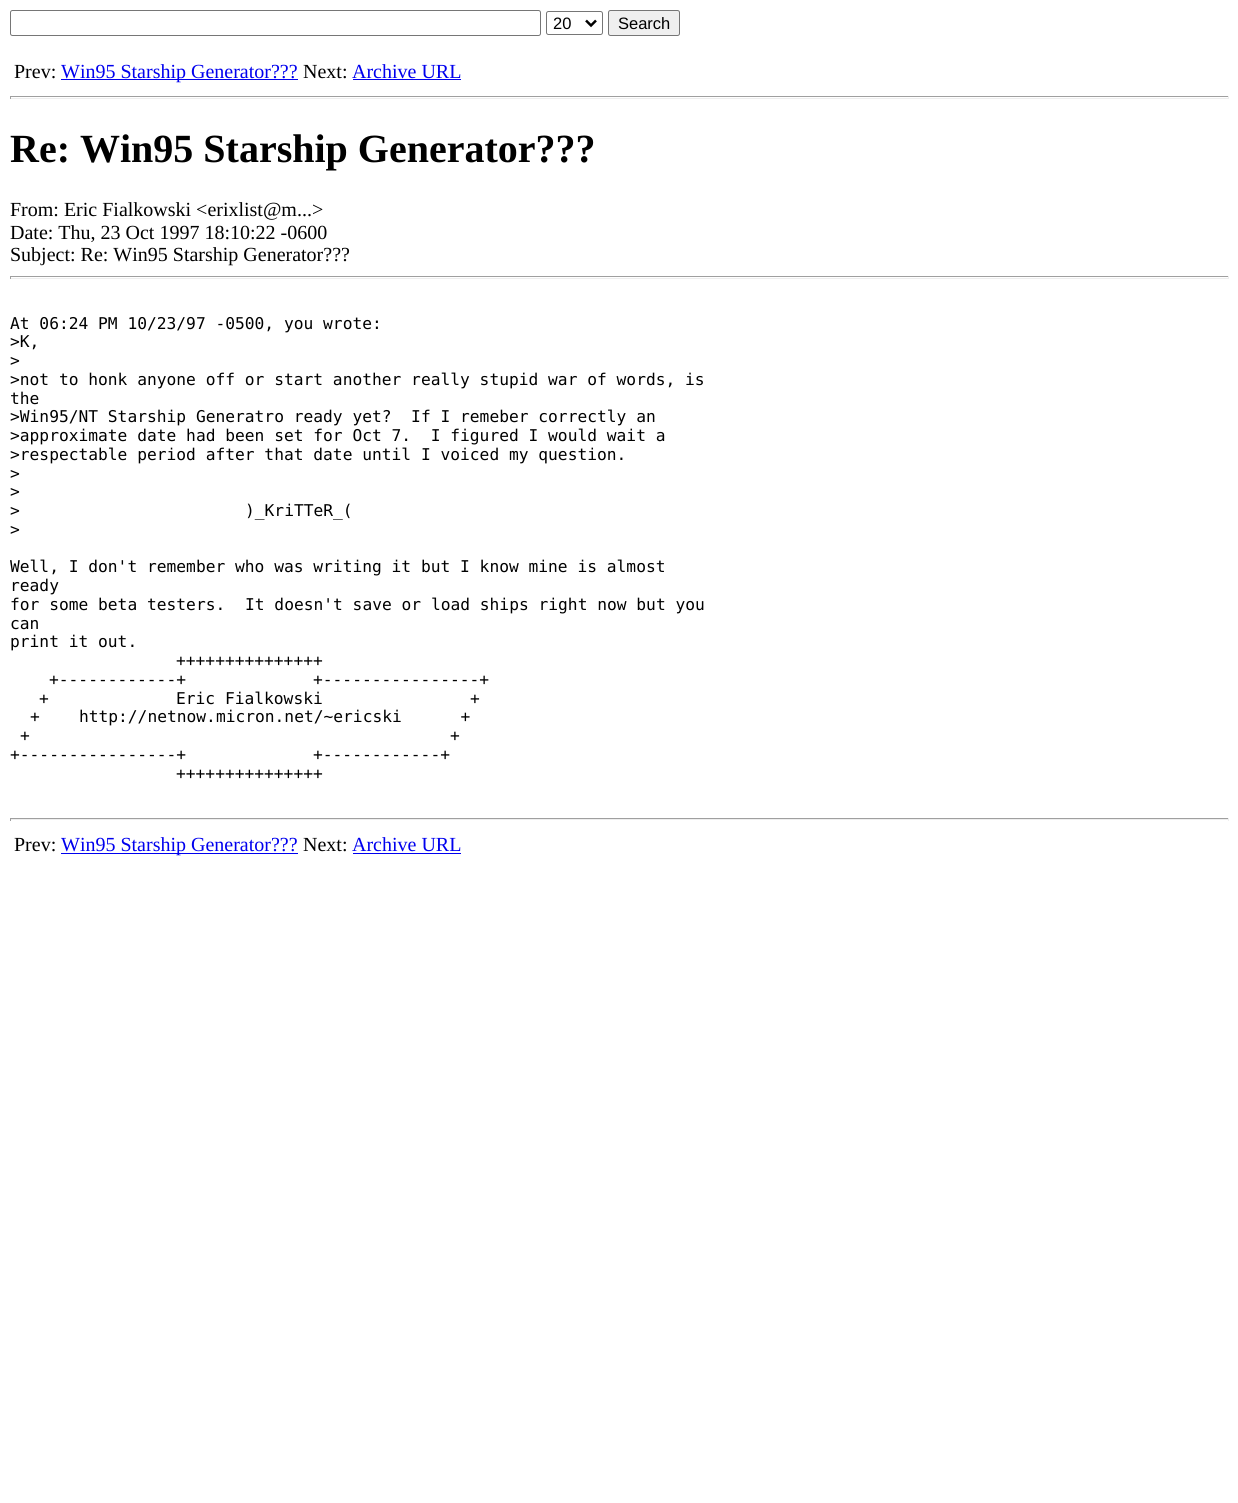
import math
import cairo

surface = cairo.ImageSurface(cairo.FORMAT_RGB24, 1238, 1503)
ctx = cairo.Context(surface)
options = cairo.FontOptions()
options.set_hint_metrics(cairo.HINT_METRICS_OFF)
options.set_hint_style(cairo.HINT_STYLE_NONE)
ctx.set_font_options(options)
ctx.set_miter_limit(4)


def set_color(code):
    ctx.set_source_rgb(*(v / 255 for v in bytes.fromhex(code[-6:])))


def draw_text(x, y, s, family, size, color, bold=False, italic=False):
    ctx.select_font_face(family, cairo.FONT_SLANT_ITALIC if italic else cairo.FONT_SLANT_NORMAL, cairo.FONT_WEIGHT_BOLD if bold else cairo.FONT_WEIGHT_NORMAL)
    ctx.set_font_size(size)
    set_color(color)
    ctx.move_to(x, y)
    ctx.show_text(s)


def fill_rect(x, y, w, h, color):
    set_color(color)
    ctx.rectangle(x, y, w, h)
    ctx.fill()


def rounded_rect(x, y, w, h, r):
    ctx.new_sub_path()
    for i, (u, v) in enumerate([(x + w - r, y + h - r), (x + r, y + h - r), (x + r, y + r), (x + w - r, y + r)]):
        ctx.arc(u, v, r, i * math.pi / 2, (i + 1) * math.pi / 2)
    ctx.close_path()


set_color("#ffffff")
ctx.paint()
rounded_rect(10.5, 10.5, 530, 25, 2)
set_color("#767676")
ctx.set_line_width(1)
ctx.stroke()
rounded_rect(546.5, 11.5, 56, 23, 2)
ctx.stroke()
ctx.new_path()
ctx.move_to(586, 20.5)
ctx.line_to(591, 25.5)
ctx.line_to(596, 20.5)
set_color("#000000")
ctx.set_line_width(2.5)
ctx.stroke()
draw_text(553, 29, "20", "Liberation Sans", 16.5, "#000000")
set_color("#efefef")
rounded_rect(608.5, 10.5, 71, 25, 2)
ctx.fill_preserve()
set_color("#767676")
ctx.set_line_width(1)
ctx.stroke()
draw_text(618, 29, "Search", "Liberation Sans", 16.5, "#000000")
draw_text(14, 78, "Prev:", "Liberation Serif", 20, "#000000")
fill_rect(61, 79, 237, 1, "#0000ee")
draw_text(61, 78, "Win95 Starship Generator???", "Liberation Serif", 20, "#0000ee")
draw_text(303, 78, "Next:", "Liberation Serif", 20, "#000000")
draw_text(352, 78, "Archive URL", "Liberation Serif", 20, "#0000ee")
fill_rect(353, 79, 108, 1, "#0000ee")
fill_rect(10, 96, 1219, 1, "#9f9f9f")
fill_rect(1228, 96, 1, 3, "#eeeeee")
fill_rect(10, 98, 1219, 1, "#eeeeee")
fill_rect(10, 96, 1, 3, "#9f9f9f")
draw_text(10, 162, "Re: Win95 Starship Generator???", "Liberation Serif", 40, "#000000", bold=True)
draw_text(10, 216, "From: Eric Fialkowski <erixlist@m...>", "Liberation Serif", 20, "#000000")
draw_text(10, 239, "Date: Thu, 23 Oct 1997 18:10:22 -0600", "Liberation Serif", 20, "#000000")
draw_text(10, 261, "Subject: Re: Win95 Starship Generator???", "Liberation Serif", 20, "#000000")
fill_rect(10, 276, 1219, 1, "#9f9f9f")
fill_rect(1228, 276, 1, 3, "#eeeeee")
fill_rect(10, 278, 1219, 1, "#eeeeee")
fill_rect(10, 276, 1, 3, "#9f9f9f")
draw_text(10, 329, "At 06:24 PM 10/23/97 -0500, you wrote:", "DejaVu Sans Mono", 16.25, "#000000")
draw_text(10, 347, ">K,", "DejaVu Sans Mono", 16.25, "#000000")
draw_text(10, 366, ">", "DejaVu Sans Mono", 16.25, "#000000")
draw_text(10, 385, ">not to honk anyone off or start another really stupid war of words, is", "DejaVu Sans Mono", 16.25, "#000000")
draw_text(10, 404, "the", "DejaVu Sans Mono", 16.25, "#000000")
draw_text(10, 422, ">Win95/NT Starship Generatro ready yet?  If I remeber correctly an", "DejaVu Sans Mono", 16.25, "#000000")
draw_text(10, 441, ">approximate date had been set for Oct 7.  I figured I would wait a", "DejaVu Sans Mono", 16.25, "#000000")
draw_text(10, 460, ">respectable period after that date until I voiced my question.", "DejaVu Sans Mono", 16.25, "#000000")
draw_text(10, 479, ">", "DejaVu Sans Mono", 16.25, "#000000")
draw_text(10, 497, ">", "DejaVu Sans Mono", 16.25, "#000000")
draw_text(10, 516, ">", "DejaVu Sans Mono", 16.25, "#000000")
draw_text(245, 516, ")_KriTTeR_(", "DejaVu Sans Mono", 16.25, "#000000")
draw_text(10, 535, ">", "DejaVu Sans Mono", 16.25, "#000000")
draw_text(10, 572, "Well, I don't remember who was writing it but I know mine is almost", "DejaVu Sans Mono", 16.25, "#000000")
draw_text(10, 591, "ready", "DejaVu Sans Mono", 16.25, "#000000")
draw_text(10, 610, "for some beta testers.", "DejaVu Sans Mono", 16.25, "#000000")
draw_text(245, 610, "It doesn't save or load ships right now but you", "DejaVu Sans Mono", 16.25, "#000000")
draw_text(10, 629, "can", "DejaVu Sans Mono", 16.25, "#000000")
draw_text(10, 647, "print it out.", "DejaVu Sans Mono", 16.25, "#000000")
draw_text(176, 666, "+++++++++++++++", "DejaVu Sans Mono", 16.25, "#000000")
draw_text(49, 685, "+------------+", "DejaVu Sans Mono", 16.25, "#000000")
draw_text(313, 685, "+----------------+", "DejaVu Sans Mono", 16.25, "#000000")
draw_text(39, 704, "+", "DejaVu Sans Mono", 16.25, "#000000")
draw_text(176, 704, "Eric Fialkowski", "DejaVu Sans Mono", 16.25, "#000000")
draw_text(470, 704, "+", "DejaVu Sans Mono", 16.25, "#000000")
draw_text(30, 722, "+    http://netnow.micron.net/~ericski      +", "DejaVu Sans Mono", 16.25, "#000000")
draw_text(20, 741, "+", "DejaVu Sans Mono", 16.25, "#000000")
draw_text(450, 741, "+", "DejaVu Sans Mono", 16.25, "#000000")
draw_text(10, 760, "+----------------+", "DejaVu Sans Mono", 16.25, "#000000")
draw_text(313, 760, "+------------+", "DejaVu Sans Mono", 16.25, "#000000")
draw_text(176, 779, "+++++++++++++++", "DejaVu Sans Mono", 16.25, "#000000")
fill_rect(10, 818, 1219, 1, "#9f9f9f")
fill_rect(1228, 818, 1, 3, "#eeeeee")
fill_rect(10, 819, 1219, 1, "#eeeeee")
fill_rect(10, 818, 1, 3, "#9f9f9f")
draw_text(14, 851, "Prev:", "Liberation Serif", 20, "#000000")
fill_rect(61, 853, 237, 1, "#0000ee")
draw_text(61, 851, "Win95 Starship Generator???", "Liberation Serif", 20, "#0000ee")
draw_text(303, 851, "Next:", "Liberation Serif", 20, "#000000")
draw_text(352, 851, "Archive URL", "Liberation Serif", 20, "#0000ee")
fill_rect(353, 853, 108, 1, "#0000ee")
surface.write_to_png("output.png")
